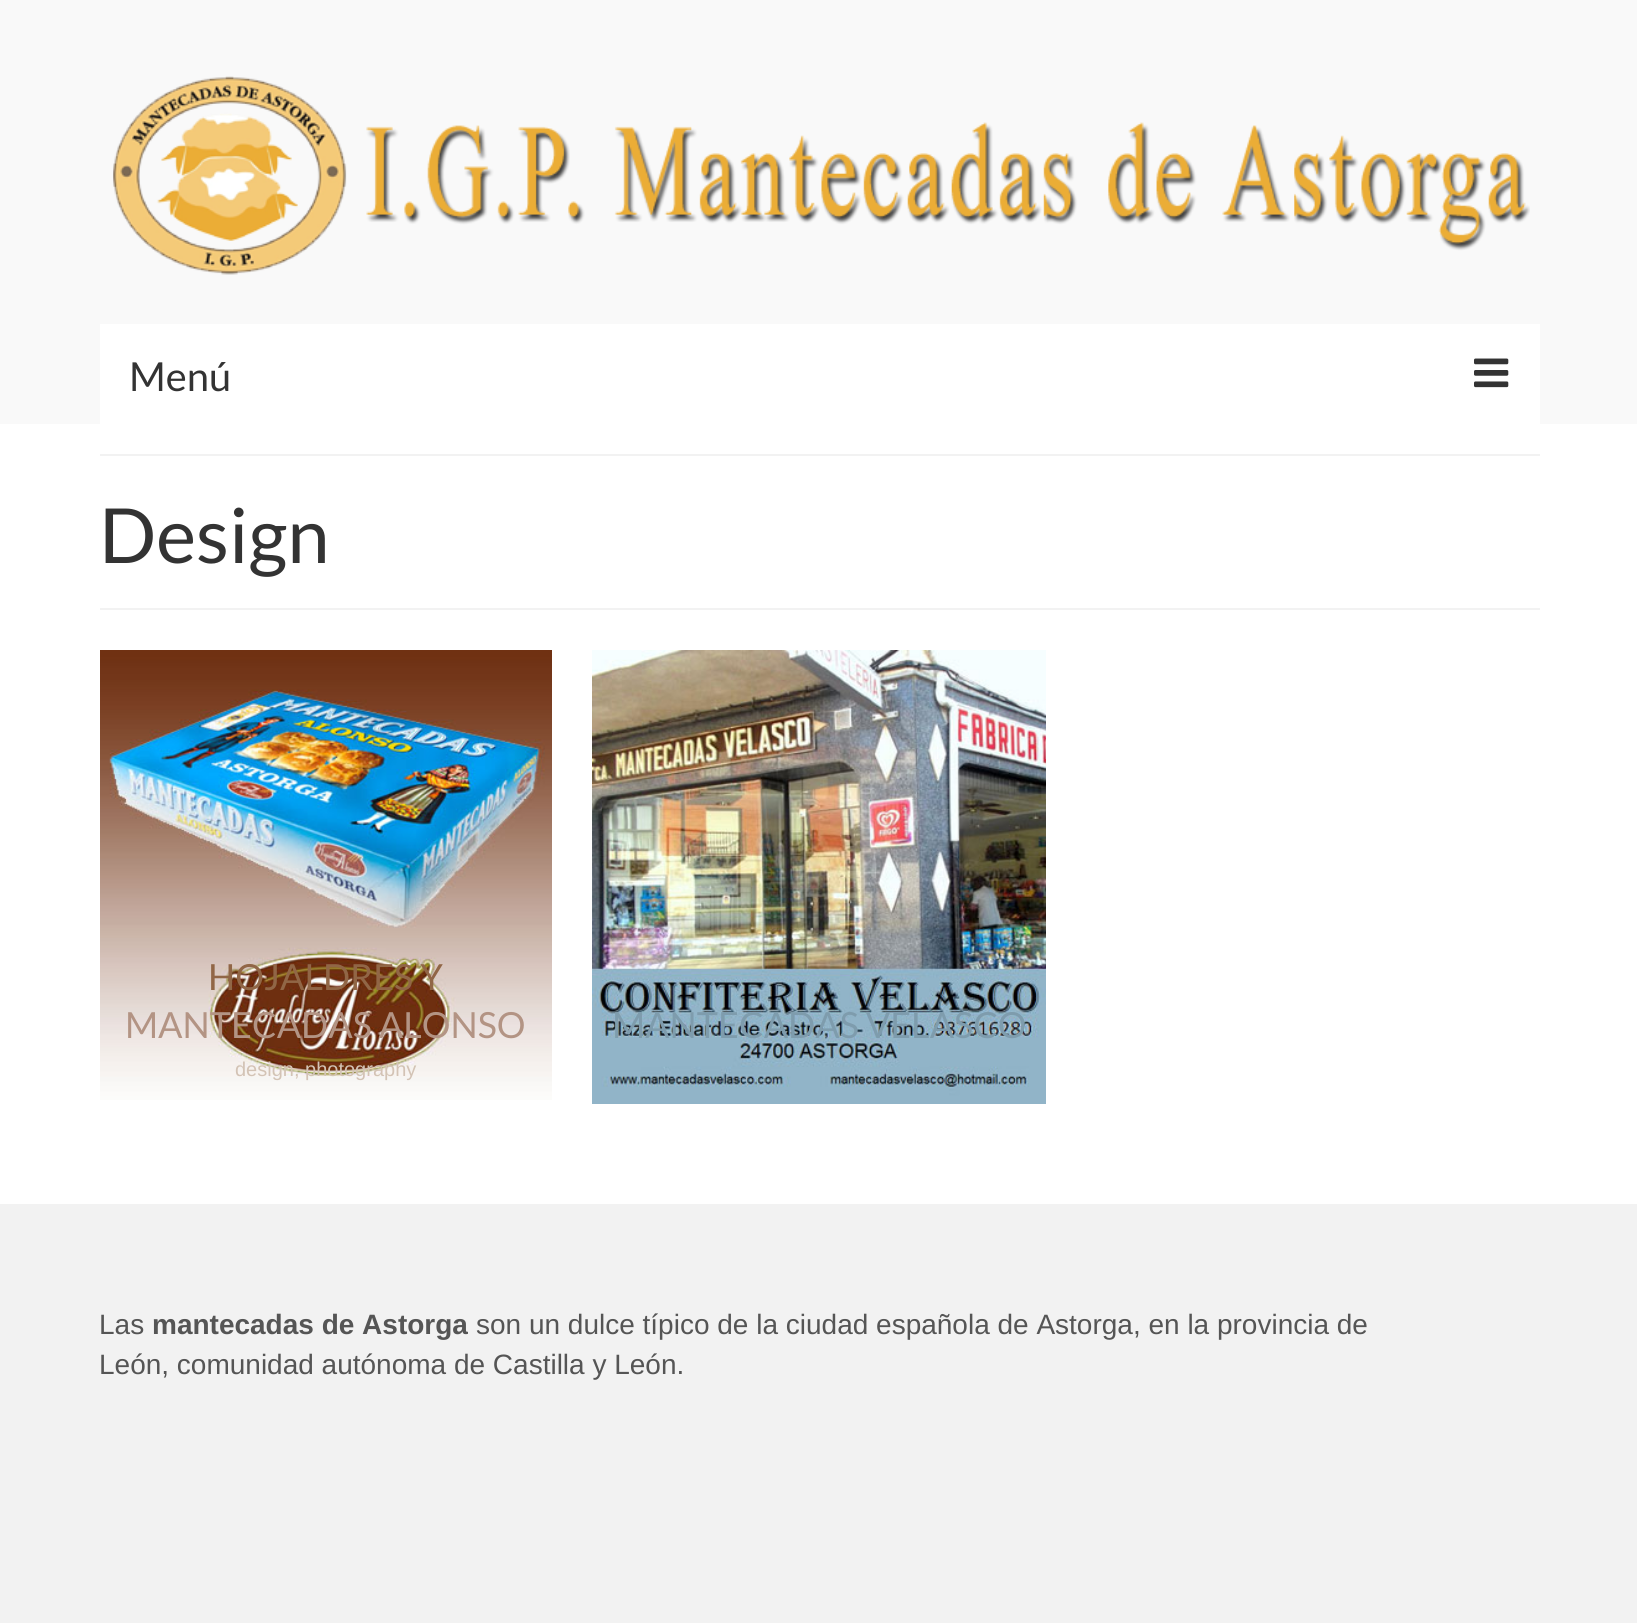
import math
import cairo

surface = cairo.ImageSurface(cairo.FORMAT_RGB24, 1637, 1623)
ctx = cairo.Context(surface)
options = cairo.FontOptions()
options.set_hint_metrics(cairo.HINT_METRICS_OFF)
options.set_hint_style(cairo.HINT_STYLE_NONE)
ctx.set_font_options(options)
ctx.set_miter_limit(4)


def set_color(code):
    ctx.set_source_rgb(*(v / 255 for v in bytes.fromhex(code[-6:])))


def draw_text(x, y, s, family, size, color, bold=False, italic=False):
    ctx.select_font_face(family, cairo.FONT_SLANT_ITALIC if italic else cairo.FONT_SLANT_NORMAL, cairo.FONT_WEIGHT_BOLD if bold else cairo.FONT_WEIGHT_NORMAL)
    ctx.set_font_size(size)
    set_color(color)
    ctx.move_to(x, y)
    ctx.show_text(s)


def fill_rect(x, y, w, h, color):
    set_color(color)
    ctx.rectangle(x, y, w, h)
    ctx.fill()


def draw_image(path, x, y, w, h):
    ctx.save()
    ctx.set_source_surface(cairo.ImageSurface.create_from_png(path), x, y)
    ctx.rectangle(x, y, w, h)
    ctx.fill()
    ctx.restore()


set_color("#ffffff")
ctx.paint()
fill_rect(0, 0, 1637, 424, "#f9f9f9")
draw_image("assets/img1.png", 113, 76, 1417, 199)
fill_rect(100, 324, 1440, 100, "#ffffff")
draw_text(129, 391, "Menú", "Lato", 40, "#333333")
draw_image("assets/img2.png", 1474, 358, 35, 30)
fill_rect(100, 454, 1440, 2, "#f2f2f2")
fill_rect(100, 608, 1440, 2, "#f2f2f2")
draw_text(99, 563, "Design", "Lato", 76, "#333333")
draw_image("assets/img3.png", 100, 650, 452, 450)
draw_text(208, 990, "HOJALDRES Y", "Lato", 36, "#916646")
draw_text(125, 1038, "MANTECADAS ALONSO", "Lato", 36, "#b39484")
draw_text(235, 1076, "design, photography", "Liberation Sans", 20, "#d3c3b5")
draw_image("assets/img4.png", 592, 650, 454, 454)
draw_text(612, 1038, "MANTECADAS VELASCO", "Lato", 36, "#7e9cad")
fill_rect(0, 1204, 1637, 419, "#f2f2f2")
draw_text(99, 1334, "Las", "Liberation Sans", 28, "#555555")
draw_text(152, 1334, "mantecadas de Astorga", "Liberation Sans", 28, "#555555", bold=True)
draw_text(476, 1334, "son un dulce típico de la ciudad española de Astorga, en la provincia de", "Liberation Sans", 28, "#555555")
draw_text(99, 1374, "León, comunidad autónoma de Castilla y León.", "Liberation Sans", 28, "#555555")
surface.write_to_png("output.png")
